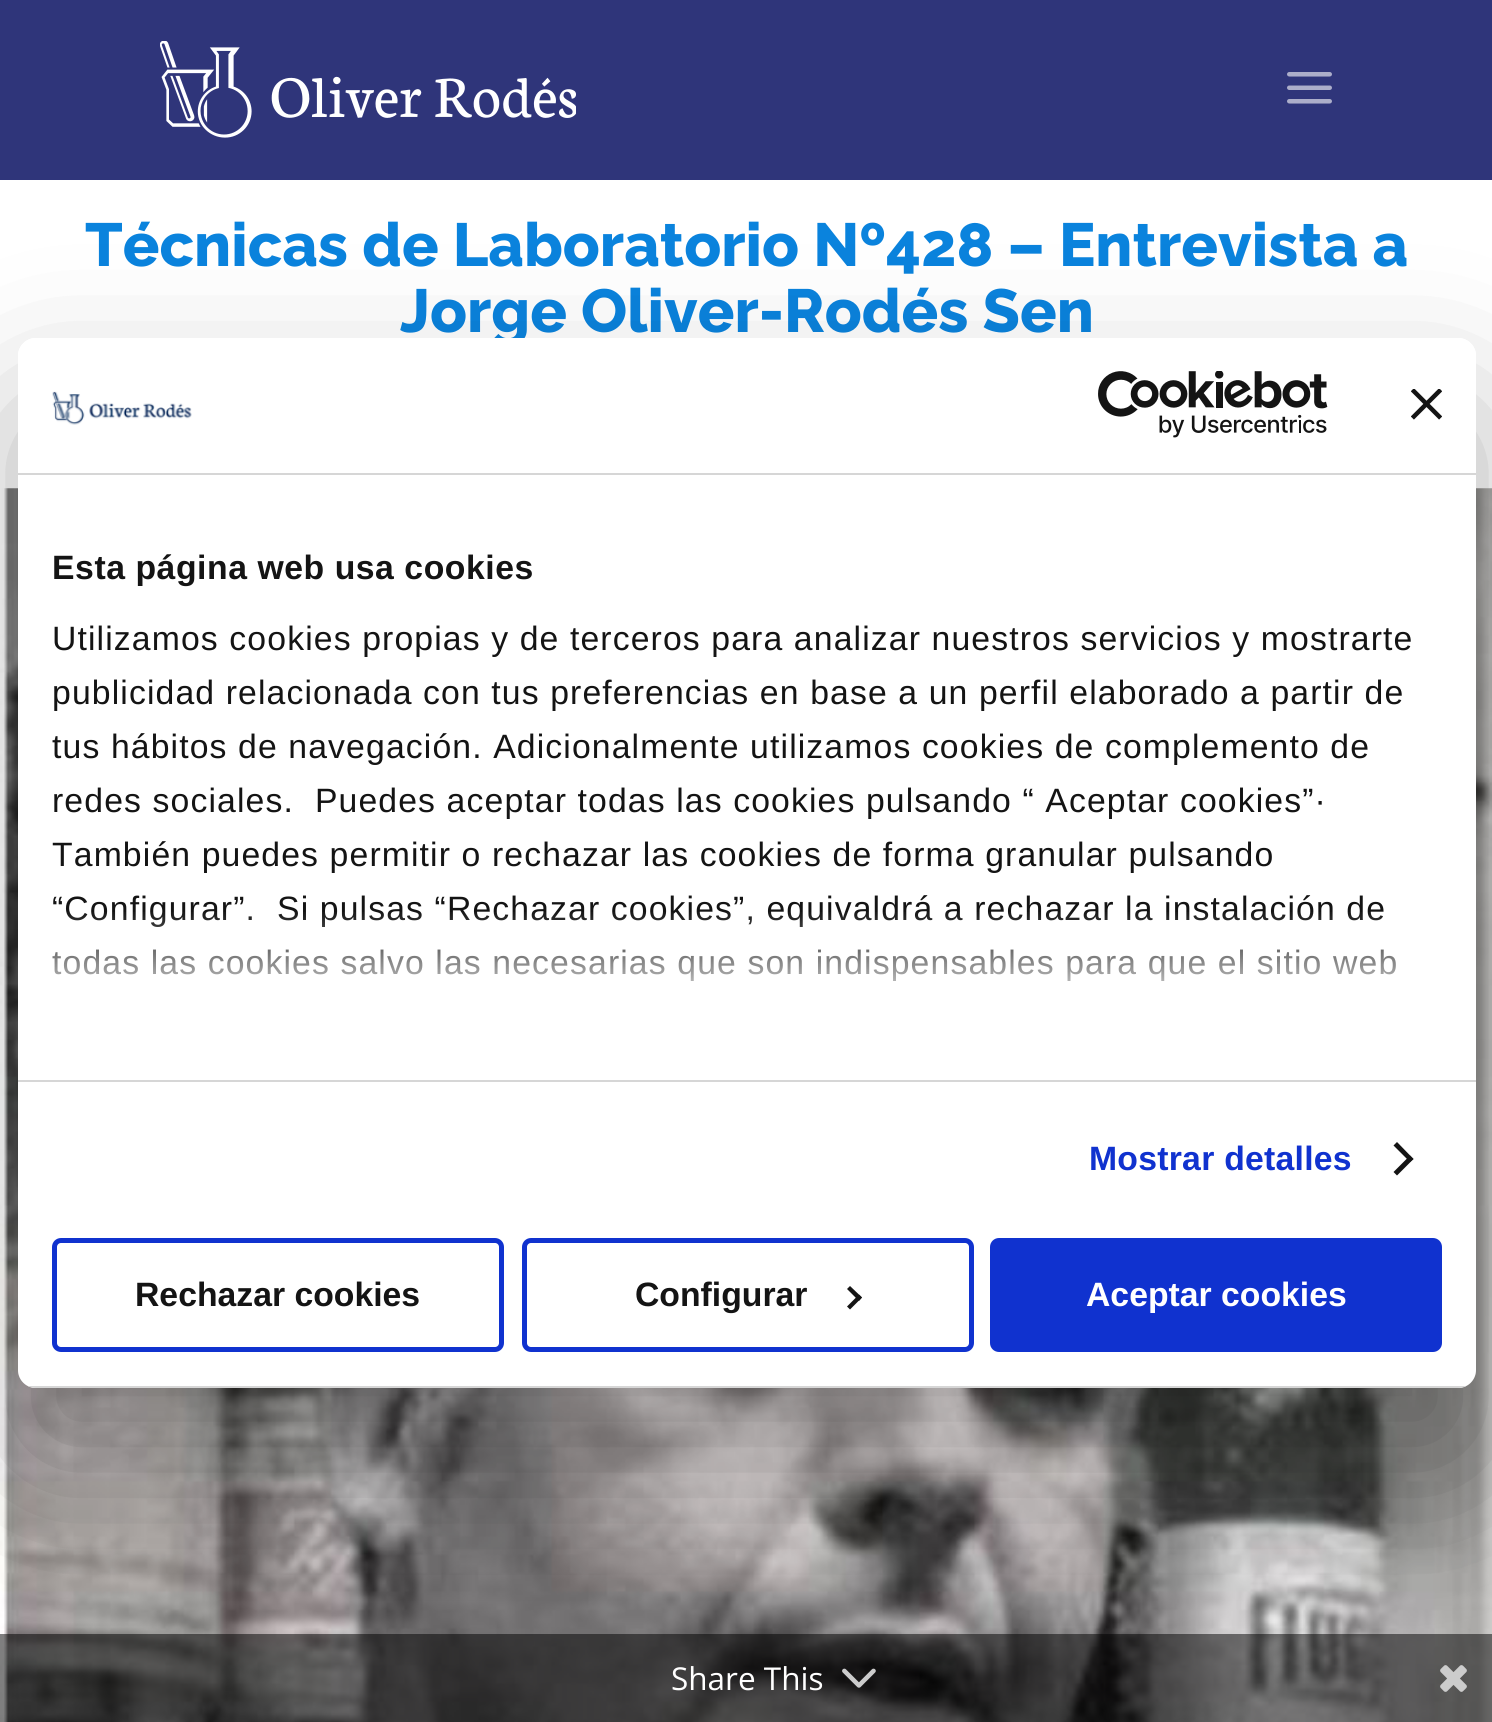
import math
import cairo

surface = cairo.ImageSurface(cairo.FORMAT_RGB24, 1492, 1722)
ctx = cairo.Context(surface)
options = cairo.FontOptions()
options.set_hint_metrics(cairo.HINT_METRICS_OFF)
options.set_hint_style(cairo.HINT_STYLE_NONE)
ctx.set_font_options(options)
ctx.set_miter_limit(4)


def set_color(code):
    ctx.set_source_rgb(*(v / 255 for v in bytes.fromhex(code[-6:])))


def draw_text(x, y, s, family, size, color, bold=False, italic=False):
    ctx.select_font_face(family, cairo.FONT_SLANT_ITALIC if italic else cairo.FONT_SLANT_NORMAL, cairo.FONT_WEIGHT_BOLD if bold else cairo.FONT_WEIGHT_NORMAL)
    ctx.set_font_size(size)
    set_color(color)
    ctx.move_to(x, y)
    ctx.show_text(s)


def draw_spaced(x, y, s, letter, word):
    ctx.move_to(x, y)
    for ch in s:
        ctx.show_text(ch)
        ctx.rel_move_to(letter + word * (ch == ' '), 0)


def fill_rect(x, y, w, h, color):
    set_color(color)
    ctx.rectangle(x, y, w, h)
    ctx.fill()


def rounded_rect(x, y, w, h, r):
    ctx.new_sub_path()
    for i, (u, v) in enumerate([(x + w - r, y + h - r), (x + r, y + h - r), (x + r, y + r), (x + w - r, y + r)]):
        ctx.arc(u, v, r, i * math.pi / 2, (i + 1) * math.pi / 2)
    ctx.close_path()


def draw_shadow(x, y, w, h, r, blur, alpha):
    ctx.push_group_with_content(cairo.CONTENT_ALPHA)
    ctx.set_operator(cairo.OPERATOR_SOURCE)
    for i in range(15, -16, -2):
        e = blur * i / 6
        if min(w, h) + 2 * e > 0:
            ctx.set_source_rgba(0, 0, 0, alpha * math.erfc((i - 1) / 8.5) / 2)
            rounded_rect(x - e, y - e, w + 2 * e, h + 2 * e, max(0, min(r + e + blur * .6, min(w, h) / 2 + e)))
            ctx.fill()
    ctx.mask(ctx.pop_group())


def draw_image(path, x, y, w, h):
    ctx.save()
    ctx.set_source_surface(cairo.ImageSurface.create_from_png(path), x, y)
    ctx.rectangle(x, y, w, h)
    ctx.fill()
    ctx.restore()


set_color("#ffffff")
ctx.paint()
fill_rect(0, 0, 1492, 180, "#2f357a")
draw_image("assets/img1.png", 160, 41, 416, 97)
draw_image("assets/img2.png", 1287, 72, 45, 32)
draw_text(85, 266, "Técnicas de Laboratorio Nº428 – Entrevista a", "Raleway ExtraBold", 60.75, "#0a83dd")
draw_text(400, 332, "Jorge Oliver-Rodés Sen", "Raleway ExtraBold", 60.75, "#0a83dd")
draw_image("assets/img3.png", 0, 488, 1492, 1234)
ctx.set_source_rgba(0, 0, 0, 0.5)
ctx.rectangle(0, 1634, 1492, 88)
ctx.fill()
draw_image("assets/img7.png", 842, 1668, 34, 20)
draw_image("assets/img8.png", 1440, 1665, 27, 27)
ctx.save()
ctx.set_fill_rule(cairo.FILL_RULE_EVEN_ODD)
ctx.new_path()
ctx.move_to(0, 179)
ctx.line_to(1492, 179)
ctx.line_to(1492, 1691)
ctx.line_to(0, 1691)
ctx.close_path()
ctx.move_to(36, 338)
ctx.line_to(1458, 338)
ctx.curve_to(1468, 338, 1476, 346, 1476, 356)
ctx.line_to(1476, 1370)
ctx.curve_to(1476, 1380, 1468, 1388, 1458, 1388)
ctx.line_to(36, 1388)
ctx.curve_to(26, 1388, 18, 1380, 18, 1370)
ctx.line_to(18, 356)
ctx.curve_to(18, 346, 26, 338, 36, 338)
ctx.close_path()
ctx.clip()
set_color("#000000")
draw_shadow(18, 410, 1458, 1050, 18, 76.5, 0.3)
ctx.restore()
set_color("#ffffff")
rounded_rect(18, 338, 1458, 1050, 18)
ctx.fill()
fill_rect(18, 473, 1458, 2, "#d6d6d6")
draw_image("assets/img4.png", 52, 391, 140, 34)
draw_image("assets/img5.png", 1098, 371, 230, 67)
draw_image("assets/img6.png", 1411, 389, 31, 31)
fill_rect(18, 1080, 1458, 2, "#d6d6d6")
ctx.select_font_face("Liberation Sans", cairo.FONT_SLANT_NORMAL, cairo.FONT_WEIGHT_BOLD)
ctx.set_font_size(33.75)
set_color("#141414")
draw_spaced(52, 579, "Esta página web usa cookies", 0.55, 0)
ctx.select_font_face("Liberation Sans")
draw_spaced(52, 650, "Utilizamos cookies propias y de terceros para analizar nuestros servicios y mostrarte", 1.12, 0)
draw_spaced(52, 704, "publicidad relacionada con tus preferencias en base a un perfil elaborado a partir de", 1.12, 0)
draw_spaced(52, 758, "tus hábitos de navegación. Adicionalmente utilizamos cookies de complemento de", 1.12, 0)
draw_spaced(52, 812, "redes sociales.  Puedes aceptar todas las cookies pulsando “ Aceptar cookies”·", 1.12, 0)
draw_spaced(52, 866, "También puedes permitir o rechazar las cookies de forma granular pulsando", 1.12, 0)
draw_spaced(52, 920, "“Configurar”.  Si pulsas “Rechazar cookies”, equivaldrá a rechazar la instalación de", 1.12, 0)
draw_spaced(52, 974, "todas las cookies salvo las necesarias que son indispensables para que el sitio web", 1.12, 0)
gradient = cairo.LinearGradient(732, 1079, 732, 910)
gradient.add_color_stop_rgba(0, 1, 1, 1, 1)
gradient.add_color_stop_rgba(0.5, 1, 1, 1, 0.8)
gradient.add_color_stop_rgba(1, 1, 1, 1, 0)
ctx.set_source(gradient)
ctx.rectangle(52, 912, 1344, 69)
ctx.fill()
ctx.select_font_face("Liberation Sans", cairo.FONT_SLANT_NORMAL, cairo.FONT_WEIGHT_BOLD)
set_color("#1032cf")
draw_spaced(1089, 1170, "Mostrar detalles", 0.25, 0)
set_color("#141414")
ctx.new_path()
ctx.move_to(1397, 1142)
ctx.line_to(1413.5, 1159)
ctx.line_to(1410, 1162)
ctx.line_to(1393.5, 1145.5)
ctx.close_path()
ctx.fill()
ctx.new_path()
ctx.move_to(1410, 1155.5)
ctx.line_to(1413.5, 1159)
ctx.line_to(1397, 1175.5)
ctx.line_to(1393.5, 1172)
ctx.close_path()
ctx.fill()
ctx.save()
rounded_rect(18, 338, 1458, 1050, 18)
ctx.clip()
fill_rect(28, 1386, 1438, 2, "#d6d6d6")
ctx.restore()
rounded_rect(54.5, 1240.5, 447, 109, 6.5)
set_color("#1032cf")
ctx.set_line_width(5)
ctx.stroke()
draw_text(135, 1306, "Rechazar cookies", "Liberation Sans", 33.75, "#141414", bold=True)
rounded_rect(524.5, 1240.5, 447, 109, 6.5)
set_color("#1032cf")
ctx.stroke()
draw_text(635, 1306, "Configurar", "Liberation Sans", 33.75, "#141414", bold=True)
ctx.new_path()
ctx.move_to(850, 1286)
ctx.line_to(862, 1297.5)
ctx.line_to(859, 1301)
ctx.line_to(847, 1289)
ctx.close_path()
ctx.fill()
ctx.new_path()
ctx.move_to(859, 1294.5)
ctx.line_to(862, 1297.5)
ctx.line_to(850, 1309.5)
ctx.line_to(847, 1306.5)
ctx.close_path()
ctx.fill()
set_color("#1032cf")
rounded_rect(992.5, 1240.5, 447, 109, 6.5)
ctx.fill_preserve()
ctx.stroke()
draw_text(1086, 1306, "Aceptar cookies", "Liberation Sans", 33.75, "#ffffff", bold=True)
draw_text(671, 1690, "Share This", "Open Sans", 31.5, "#ffffff")
surface.write_to_png("output.png")
